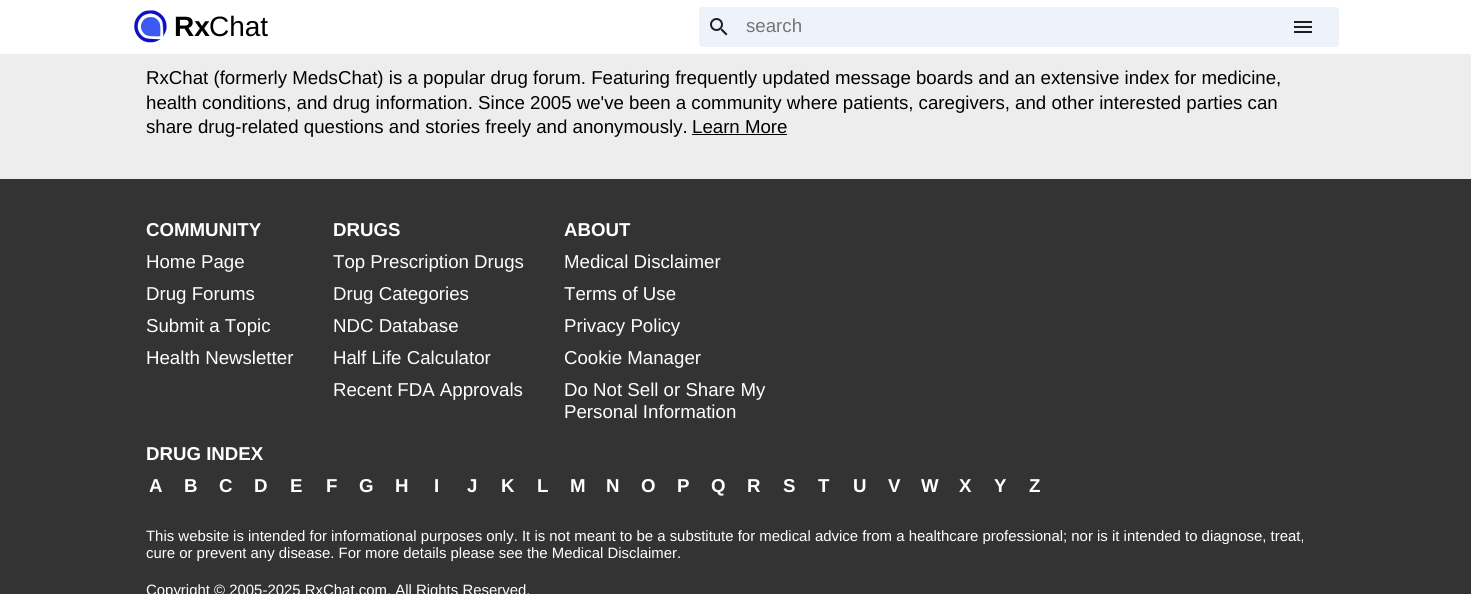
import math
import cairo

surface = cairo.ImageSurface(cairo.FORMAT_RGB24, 1471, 594)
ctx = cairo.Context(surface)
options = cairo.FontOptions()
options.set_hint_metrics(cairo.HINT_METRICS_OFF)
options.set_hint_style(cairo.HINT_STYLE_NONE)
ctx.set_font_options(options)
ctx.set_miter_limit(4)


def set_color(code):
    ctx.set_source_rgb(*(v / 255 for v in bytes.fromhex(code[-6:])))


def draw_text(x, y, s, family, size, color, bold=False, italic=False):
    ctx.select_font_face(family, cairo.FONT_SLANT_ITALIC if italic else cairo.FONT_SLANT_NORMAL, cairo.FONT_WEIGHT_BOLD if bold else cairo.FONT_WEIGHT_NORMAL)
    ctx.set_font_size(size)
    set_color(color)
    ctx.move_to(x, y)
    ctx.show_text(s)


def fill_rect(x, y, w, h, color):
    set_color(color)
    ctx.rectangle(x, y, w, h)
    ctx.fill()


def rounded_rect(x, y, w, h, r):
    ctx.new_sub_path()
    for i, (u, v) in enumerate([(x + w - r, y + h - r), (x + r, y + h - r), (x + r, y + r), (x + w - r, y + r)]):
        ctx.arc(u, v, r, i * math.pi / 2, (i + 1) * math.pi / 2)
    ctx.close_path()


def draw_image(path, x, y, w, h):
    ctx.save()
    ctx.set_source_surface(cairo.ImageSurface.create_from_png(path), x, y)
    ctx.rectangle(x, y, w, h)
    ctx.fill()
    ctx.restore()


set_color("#ededed")
ctx.paint()
fill_rect(0, 0, 1471, 54, "#ffffff")
draw_image("assets/img1.png", 134, 10, 33, 33)
draw_text(174, 36, "Rx", "Liberation Sans", 28, "#000000", bold=True)
draw_text(209, 36, "Chat", "Liberation Sans", 28, "#000000")
set_color("#eef2fb")
rounded_rect(699, 7, 640, 40, 3)
ctx.fill()
draw_image("assets/img2.png", 710, 18, 18, 18)
draw_text(746, 32, "search", "Liberation Sans", 18.67, "#757575")
draw_image("assets/img3.png", 1294, 21, 18, 12)
draw_text(146, 84, "RxChat (formerly MedsChat) is a popular drug forum. Featuring frequently updated message boards and an extensive index for medicine,", "Liberation Sans", 18.67, "#000000")
draw_text(146, 109, "health conditions, and drug information. Since 2005 we've been a community where patients, caregivers, and other interested parties can", "Liberation Sans", 18.67, "#000000")
draw_text(146, 133, "share drug-related questions and stories freely and anonymously.", "Liberation Sans", 18.67, "#000000")
draw_text(692, 133, "Learn More", "Liberation Sans", 18.67, "#000000")
fill_rect(692, 134, 95, 1, "#000000")
fill_rect(0, 179, 1471, 415, "#333333")
draw_text(146, 236, "COMMUNITY", "Liberation Sans", 18.67, "#ffffff", bold=True)
draw_text(146, 268, "Home Page", "Liberation Sans", 18.67, "#ffffff")
draw_text(146, 300, "Drug Forums", "Liberation Sans", 18.67, "#ffffff")
draw_text(146, 332, "Submit a Topic", "Liberation Sans", 18.67, "#ffffff")
draw_text(146, 364, "Health Newsletter", "Liberation Sans", 18.67, "#ffffff")
draw_text(333, 236, "DRUGS", "Liberation Sans", 18.67, "#ffffff", bold=True)
draw_text(333, 268, "Top Prescription Drugs", "Liberation Sans", 18.67, "#ffffff")
draw_text(333, 300, "Drug Categories", "Liberation Sans", 18.67, "#ffffff")
draw_text(333, 332, "NDC Database", "Liberation Sans", 18.67, "#ffffff")
draw_text(333, 364, "Half Life Calculator", "Liberation Sans", 18.67, "#ffffff")
draw_text(333, 396, "Recent FDA Approvals", "Liberation Sans", 18.67, "#ffffff")
draw_text(564, 236, "ABOUT", "Liberation Sans", 18.67, "#ffffff", bold=True)
draw_text(564, 268, "Medical Disclaimer", "Liberation Sans", 18.67, "#ffffff")
draw_text(564, 300, "Terms of Use", "Liberation Sans", 18.67, "#ffffff")
draw_text(564, 332, "Privacy Policy", "Liberation Sans", 18.67, "#ffffff")
draw_text(564, 364, "Cookie Manager", "Liberation Sans", 18.67, "#ffffff")
draw_text(564, 396, "Do Not Sell or Share My", "Liberation Sans", 18.67, "#ffffff")
draw_text(564, 418, "Personal Information", "Liberation Sans", 18.67, "#ffffff")
draw_text(146, 460, "DRUG INDEX", "Liberation Sans", 18.67, "#ffffff", bold=True)
draw_text(149, 492, "A", "Liberation Sans", 18.67, "#ffffff", bold=True)
draw_text(184, 492, "B", "Liberation Sans", 18.67, "#ffffff", bold=True)
draw_text(219, 492, "C", "Liberation Sans", 18.67, "#ffffff", bold=True)
draw_text(254, 492, "D", "Liberation Sans", 18.67, "#ffffff", bold=True)
draw_text(290, 492, "E", "Liberation Sans", 18.67, "#ffffff", bold=True)
draw_text(326, 492, "F", "Liberation Sans", 18.67, "#ffffff", bold=True)
draw_text(359, 492, "G", "Liberation Sans", 18.67, "#ffffff", bold=True)
draw_text(395, 492, "H", "Liberation Sans", 18.67, "#ffffff", bold=True)
draw_text(434, 492, "I", "Liberation Sans", 18.67, "#ffffff", bold=True)
draw_text(467, 492, "J", "Liberation Sans", 18.67, "#ffffff", bold=True)
draw_text(501, 492, "K", "Liberation Sans", 18.67, "#ffffff", bold=True)
draw_text(537, 492, "L", "Liberation Sans", 18.67, "#ffffff", bold=True)
draw_text(570, 492, "M", "Liberation Sans", 18.67, "#ffffff", bold=True)
draw_text(606, 492, "N", "Liberation Sans", 18.67, "#ffffff", bold=True)
draw_text(641, 492, "O", "Liberation Sans", 18.67, "#ffffff", bold=True)
draw_text(677, 492, "P", "Liberation Sans", 18.67, "#ffffff", bold=True)
draw_text(711, 492, "Q", "Liberation Sans", 18.67, "#ffffff", bold=True)
draw_text(747, 492, "R", "Liberation Sans", 18.67, "#ffffff", bold=True)
draw_text(783, 492, "S", "Liberation Sans", 18.67, "#ffffff", bold=True)
draw_text(818, 492, "T", "Liberation Sans", 18.67, "#ffffff", bold=True)
draw_text(853, 492, "U", "Liberation Sans", 18.67, "#ffffff", bold=True)
draw_text(888, 492, "V", "Liberation Sans", 18.67, "#ffffff", bold=True)
draw_text(921, 492, "W", "Liberation Sans", 18.67, "#ffffff", bold=True)
draw_text(959, 492, "X", "Liberation Sans", 18.67, "#ffffff", bold=True)
draw_text(994, 492, "Y", "Liberation Sans", 18.67, "#ffffff", bold=True)
draw_text(1029, 492, "Z", "Liberation Sans", 18.67, "#ffffff", bold=True)
draw_text(146, 541, "This website is intended for informational purposes only. It is not meant to be a substitute for medical advice from a healthcare professional; nor is it intended to diagnose, treat,", "Liberation Sans", 14.93, "#ffffff")
draw_text(146, 558, "cure or prevent any disease. For more details please see the Medical Disclaimer.", "Liberation Sans", 14.93, "#ffffff")
draw_text(146, 595, "Copyright © 2005-2025 RxChat.com. All Rights Reserved.", "Liberation Sans", 14.93, "#ffffff")
surface.write_to_png("output.png")
